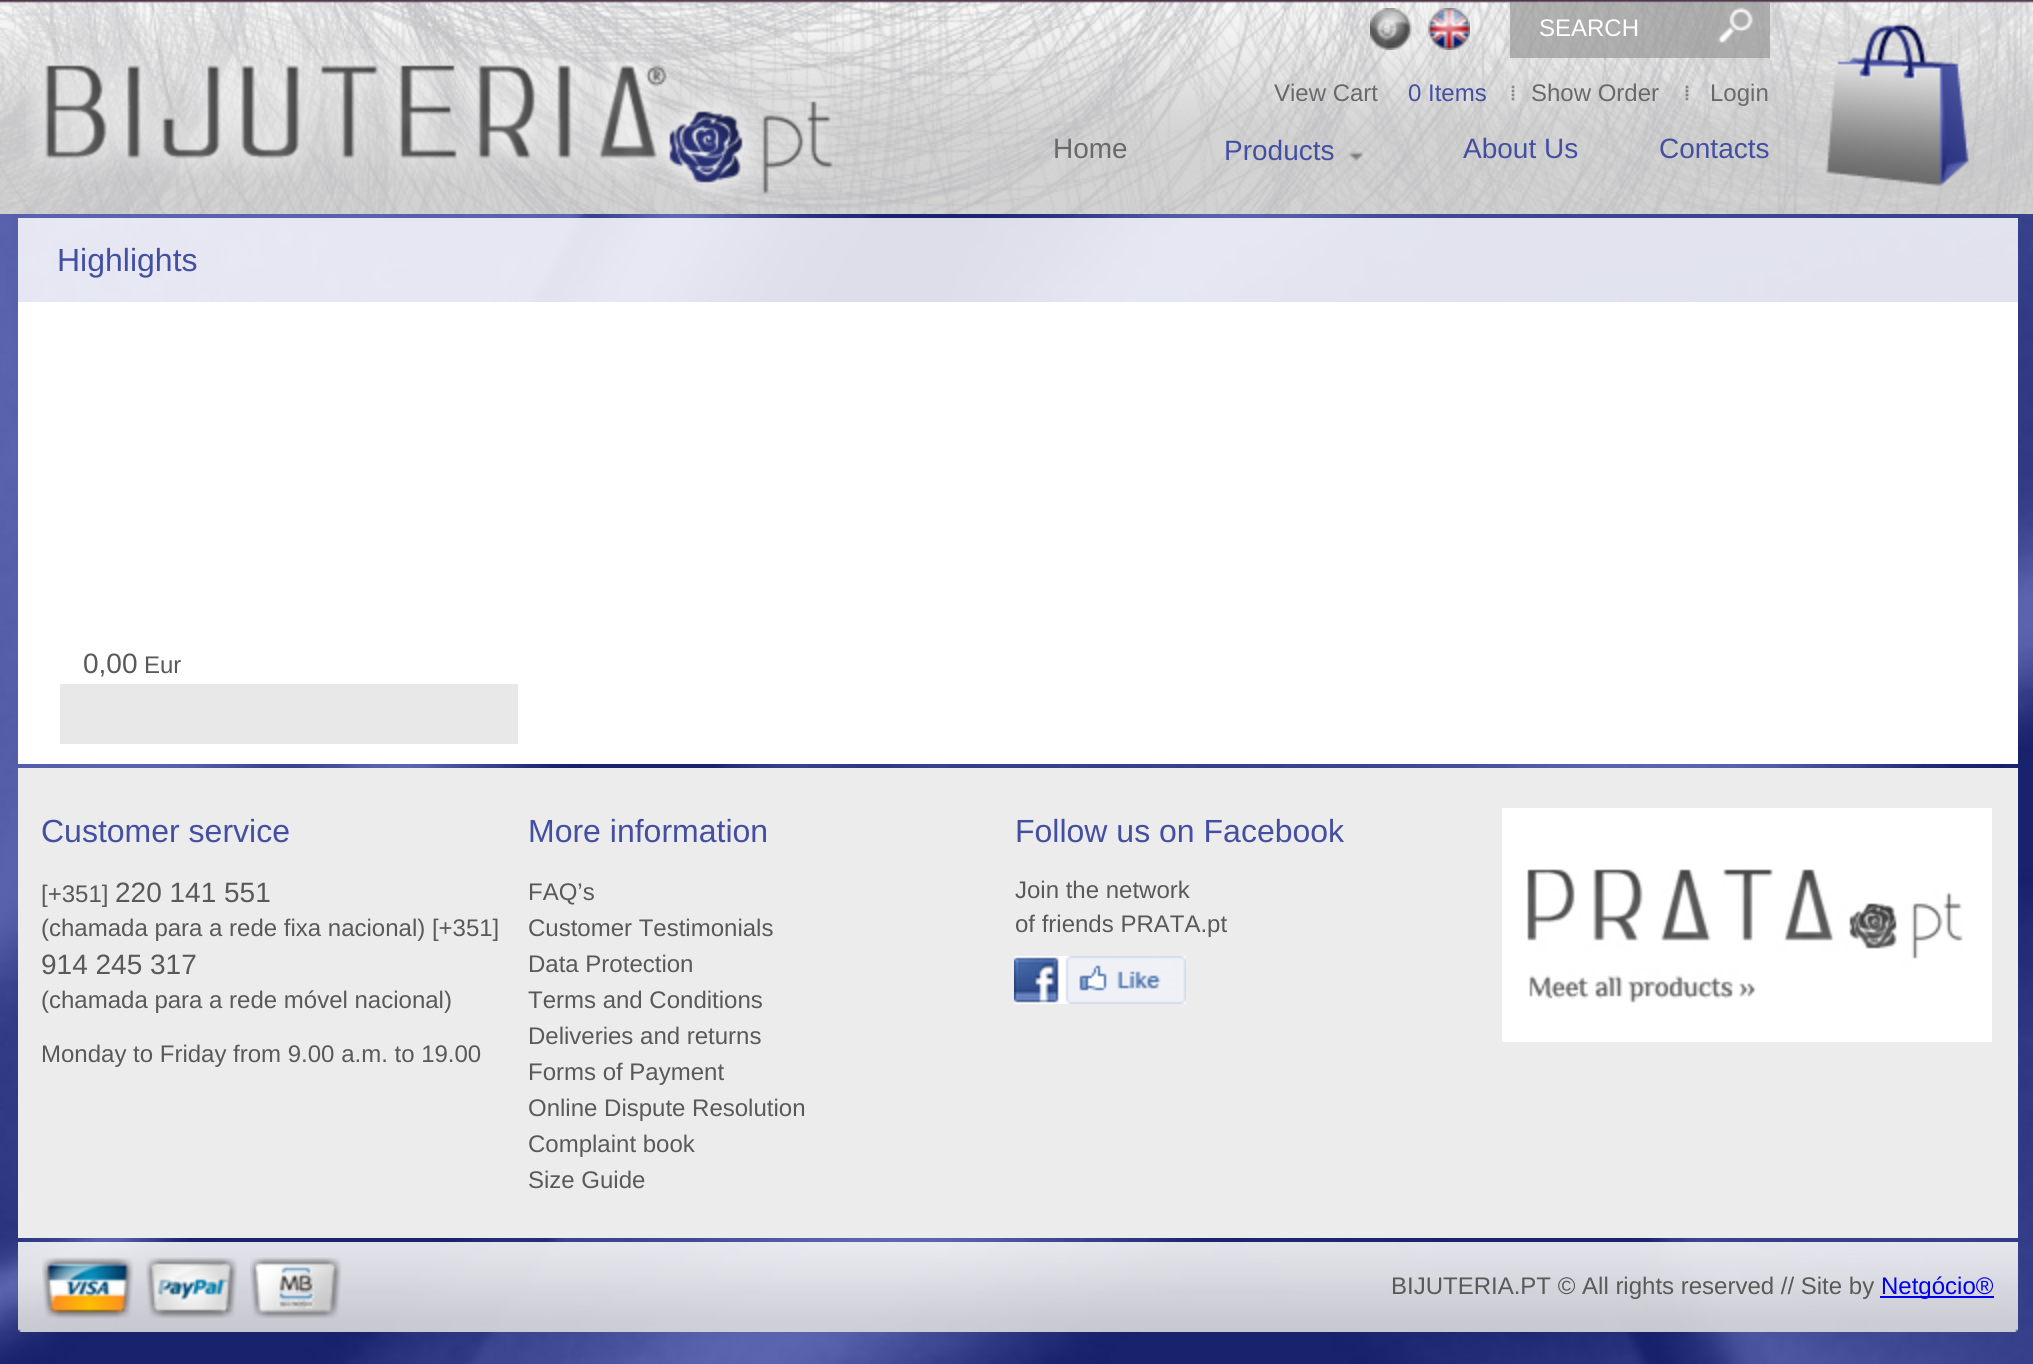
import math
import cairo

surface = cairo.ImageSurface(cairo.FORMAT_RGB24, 2033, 1364)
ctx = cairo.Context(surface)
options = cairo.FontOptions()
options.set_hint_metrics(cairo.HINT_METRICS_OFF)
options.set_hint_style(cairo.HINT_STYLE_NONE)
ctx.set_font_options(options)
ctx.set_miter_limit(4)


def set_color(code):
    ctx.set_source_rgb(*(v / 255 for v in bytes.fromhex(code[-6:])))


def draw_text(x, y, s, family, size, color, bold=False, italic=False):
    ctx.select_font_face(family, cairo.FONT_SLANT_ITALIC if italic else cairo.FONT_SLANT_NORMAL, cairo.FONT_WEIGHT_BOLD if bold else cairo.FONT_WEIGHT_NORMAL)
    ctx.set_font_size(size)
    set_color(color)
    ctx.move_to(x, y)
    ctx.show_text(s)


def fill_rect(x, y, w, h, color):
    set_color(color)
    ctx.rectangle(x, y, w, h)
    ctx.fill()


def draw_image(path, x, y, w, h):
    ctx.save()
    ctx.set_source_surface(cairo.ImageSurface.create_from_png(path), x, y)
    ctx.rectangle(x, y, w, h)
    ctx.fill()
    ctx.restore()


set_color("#ffffff")
ctx.paint()
draw_image("assets/img1.png", 0, 0, 2033, 214)
draw_image("assets/img2.png", 26, 48, 809, 153)
draw_image("assets/img3.png", 1370, 8, 42, 42)
draw_image("assets/img4.png", 1428, 8, 42, 42)
draw_image("assets/img5.png", 1510, 2, 260, 56)
draw_text(1539, 36, "SEARCH", "Liberation Sans", 24, "#ffffff")
draw_text(1274, 101, "View Cart", "Liberation Sans", 24, "#696969")
draw_text(1408, 101, "0 Items", "Liberation Sans", 24, "#444fa1")
draw_image("assets/img6.png", 1511, 85, 4, 16)
draw_text(1531, 101, "Show Order", "Liberation Sans", 24, "#696969")
draw_image("assets/img7.png", 1685, 85, 4, 16)
draw_text(1710, 101, "Login", "Liberation Sans", 24, "#696969")
draw_text(1053, 158, "Home", "Liberation Sans", 28, "#696969")
draw_text(1224, 160, "Products", "Liberation Sans", 28, "#444fa1")
draw_image("assets/img8.png", 1349, 151, 14, 10)
draw_text(1463, 158, "About Us", "Liberation Sans", 28, "#444fa1")
draw_text(1659, 158, "Contacts", "Liberation Sans", 28, "#444fa1")
draw_image("assets/img9.png", 1825, 23, 144, 164)
draw_image("assets/img10.png", 0, 214, 2033, 1150)
ctx.set_source_rgba(1, 1, 1, 0.85)
ctx.rectangle(18, 218, 2000, 84)
ctx.fill()
draw_text(57, 271, "Highlights", "Liberation Sans", 32, "#444fa1")
fill_rect(18, 302, 2000, 462, "#ffffff")
draw_text(83, 673, "0,00", "Liberation Sans", 28, "#595959")
draw_text(144, 673, "Eur", "Liberation Sans", 24, "#595959")
fill_rect(60, 684, 458, 60, "#e8e8e8")
fill_rect(18, 768, 2000, 470, "#ececec")
draw_text(41, 842, "Customer service", "Liberation Sans", 32, "#444fa1")
draw_text(41, 902, "[+351]", "Liberation Sans", 24, "#595959")
draw_text(115, 902, "220 141 551", "Liberation Sans", 28, "#595959")
draw_text(41, 936, "(chamada para a rede fixa nacional) [+351]", "Liberation Sans", 24, "#595959")
draw_text(41, 974, "914 245 317", "Liberation Sans", 28, "#595959")
draw_text(41, 1008, "(chamada para a rede móvel nacional)", "Liberation Sans", 24, "#595959")
draw_text(41, 1062, "Monday to Friday from 9.00 a.m. to 19.00", "Liberation Sans", 24, "#595959")
draw_text(528, 842, "More information", "Liberation Sans", 32, "#444fa1")
draw_text(528, 900, "FAQ’s", "Liberation Sans", 24, "#595959")
draw_text(528, 936, "Customer Testimonials", "Liberation Sans", 24, "#595959")
draw_text(528, 972, "Data Protection", "Liberation Sans", 24, "#595959")
draw_text(528, 1008, "Terms and Conditions", "Liberation Sans", 24, "#595959")
draw_text(528, 1044, "Deliveries and returns", "Liberation Sans", 24, "#595959")
draw_text(528, 1080, "Forms of Payment", "Liberation Sans", 24, "#595959")
draw_text(528, 1116, "Online Dispute Resolution", "Liberation Sans", 24, "#595959")
draw_text(528, 1152, "Complaint book", "Liberation Sans", 24, "#595959")
draw_text(528, 1188, "Size Guide", "Liberation Sans", 24, "#595959")
draw_text(1015, 842, "Follow us on Facebook", "Liberation Sans", 32, "#444fa1")
draw_text(1015, 898, "Join the network", "Liberation Sans", 24, "#595959")
draw_text(1015, 932, "of friends PRATA.pt", "Liberation Sans", 24, "#595959")
draw_image("assets/img11.png", 1014, 956, 172, 48)
fill_rect(1502, 808, 490, 234, "#ffffff")
draw_image("assets/img12.png", 1527, 869, 436, 134)
draw_image("assets/img13.png", 18, 1242, 2000, 90)
draw_image("assets/img14.png", 42, 1257, 92, 62)
draw_image("assets/img15.png", 146, 1257, 92, 62)
draw_image("assets/img16.png", 250, 1257, 92, 62)
draw_text(1391, 1294, "BIJUTERIA.PT © All rights reserved // Site by", "Liberation Sans", 24, "#595959")
fill_rect(1880, 1296, 114, 2, "#0000ee")
draw_text(1881, 1294, "Netgócio®", "Liberation Sans", 24, "#0000ee")
surface.write_to_png("output.png")
